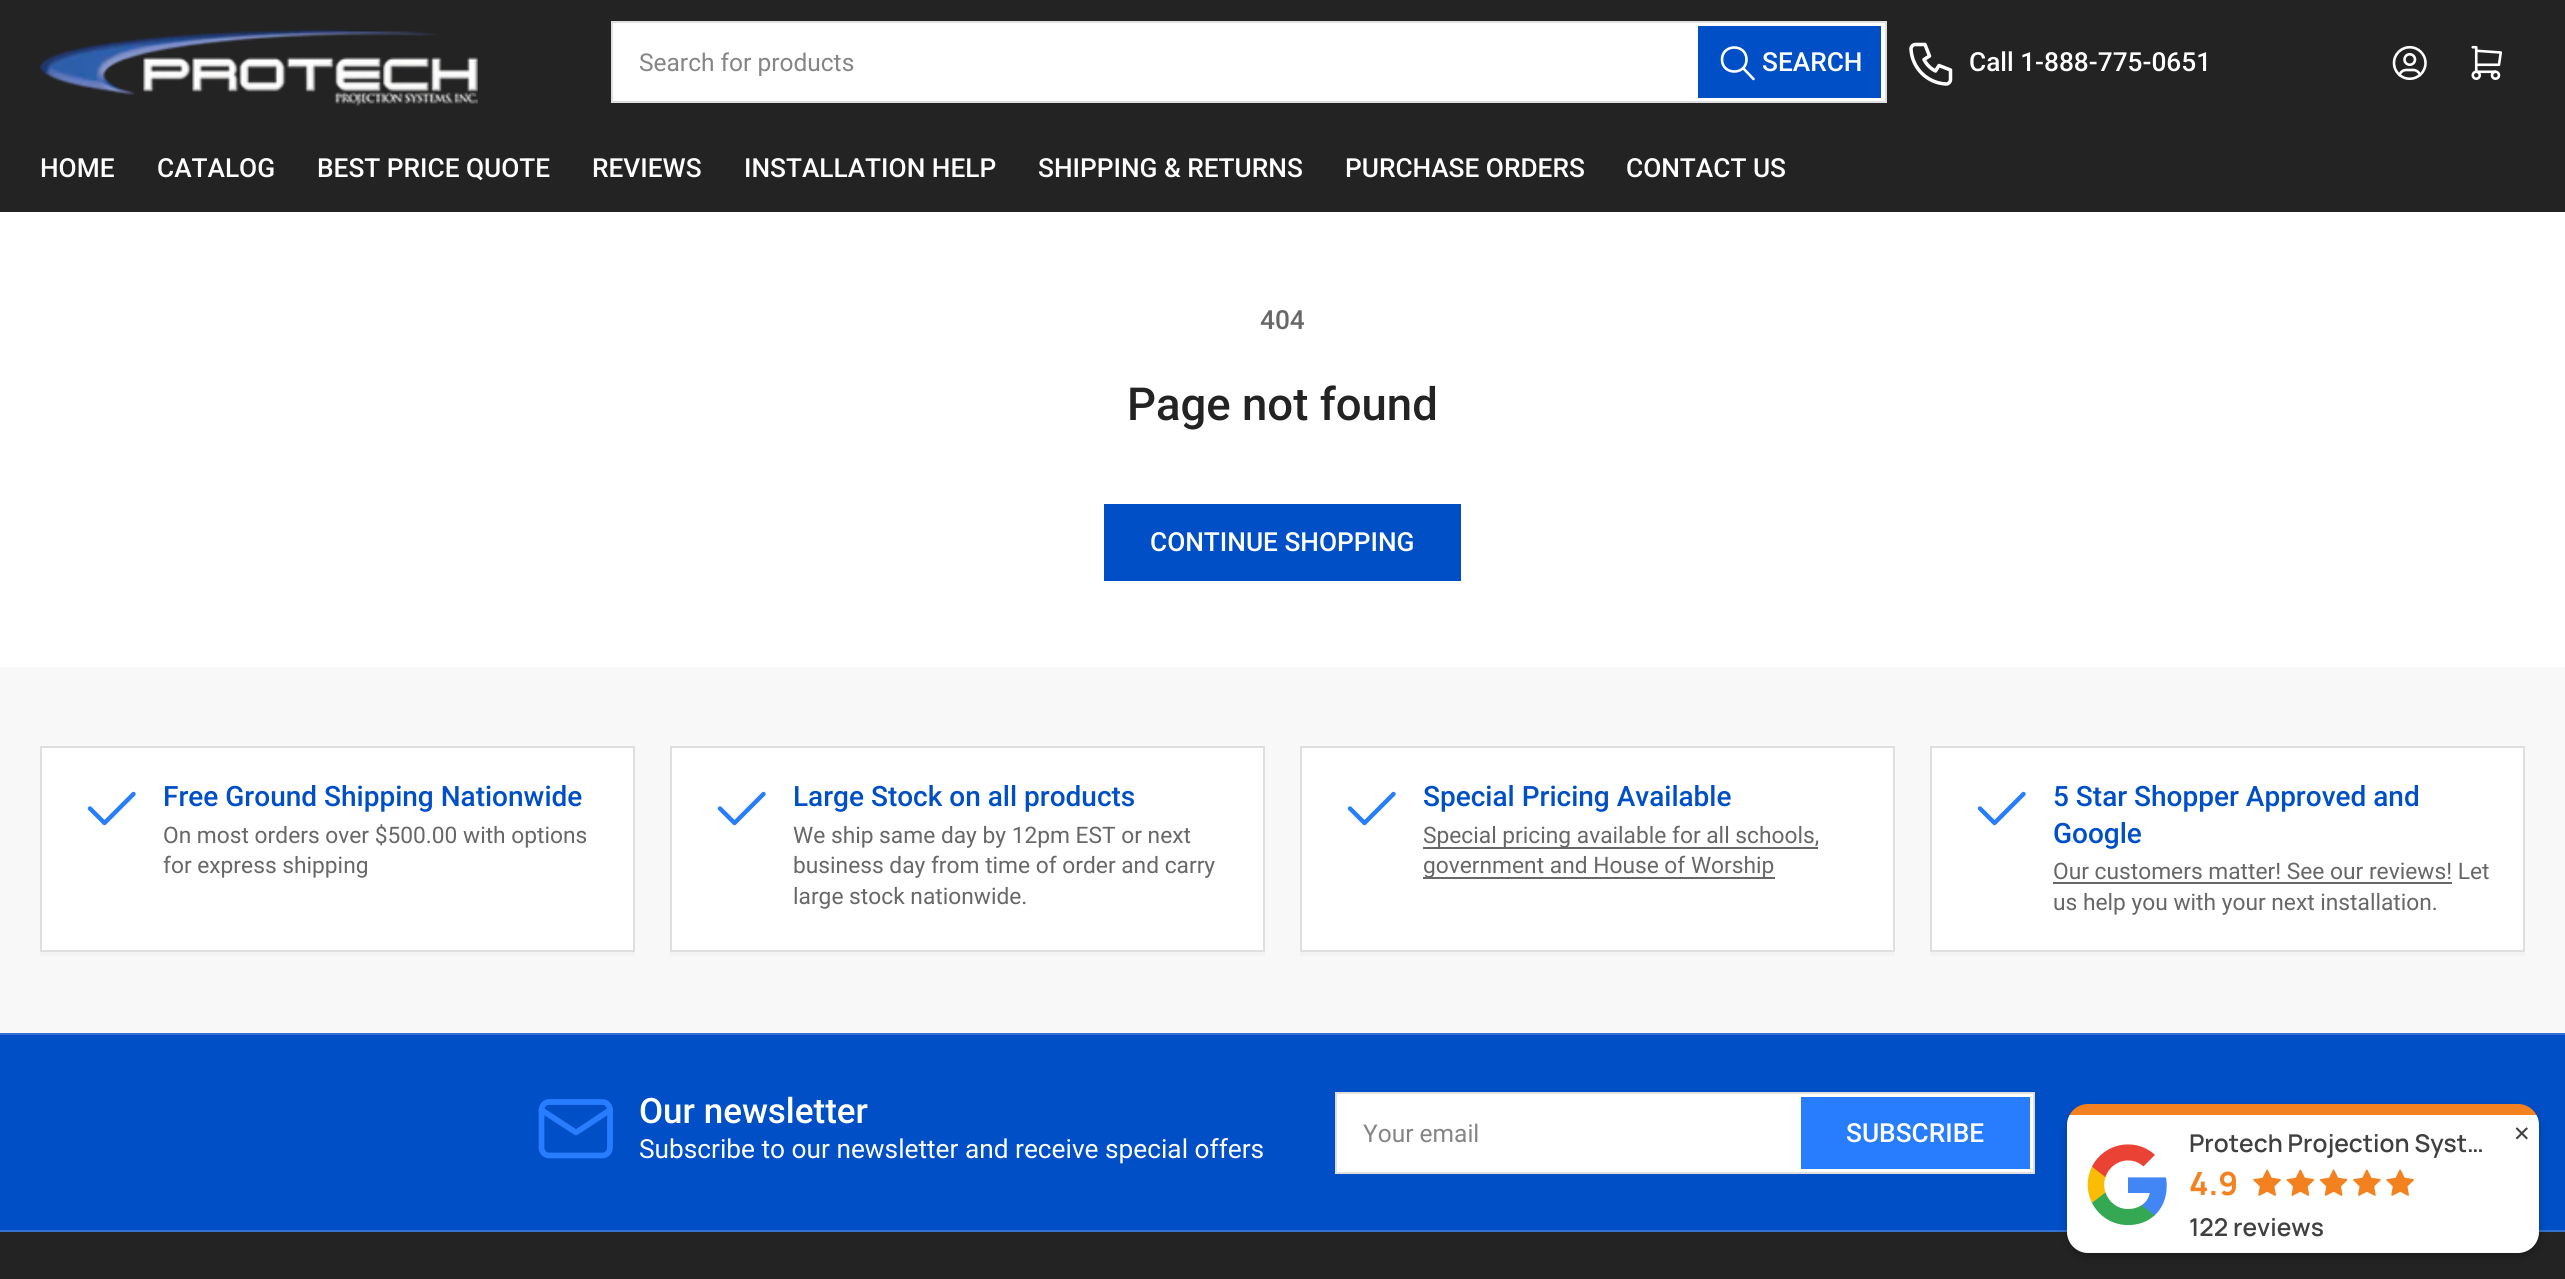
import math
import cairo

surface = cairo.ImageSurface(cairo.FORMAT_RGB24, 2565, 1279)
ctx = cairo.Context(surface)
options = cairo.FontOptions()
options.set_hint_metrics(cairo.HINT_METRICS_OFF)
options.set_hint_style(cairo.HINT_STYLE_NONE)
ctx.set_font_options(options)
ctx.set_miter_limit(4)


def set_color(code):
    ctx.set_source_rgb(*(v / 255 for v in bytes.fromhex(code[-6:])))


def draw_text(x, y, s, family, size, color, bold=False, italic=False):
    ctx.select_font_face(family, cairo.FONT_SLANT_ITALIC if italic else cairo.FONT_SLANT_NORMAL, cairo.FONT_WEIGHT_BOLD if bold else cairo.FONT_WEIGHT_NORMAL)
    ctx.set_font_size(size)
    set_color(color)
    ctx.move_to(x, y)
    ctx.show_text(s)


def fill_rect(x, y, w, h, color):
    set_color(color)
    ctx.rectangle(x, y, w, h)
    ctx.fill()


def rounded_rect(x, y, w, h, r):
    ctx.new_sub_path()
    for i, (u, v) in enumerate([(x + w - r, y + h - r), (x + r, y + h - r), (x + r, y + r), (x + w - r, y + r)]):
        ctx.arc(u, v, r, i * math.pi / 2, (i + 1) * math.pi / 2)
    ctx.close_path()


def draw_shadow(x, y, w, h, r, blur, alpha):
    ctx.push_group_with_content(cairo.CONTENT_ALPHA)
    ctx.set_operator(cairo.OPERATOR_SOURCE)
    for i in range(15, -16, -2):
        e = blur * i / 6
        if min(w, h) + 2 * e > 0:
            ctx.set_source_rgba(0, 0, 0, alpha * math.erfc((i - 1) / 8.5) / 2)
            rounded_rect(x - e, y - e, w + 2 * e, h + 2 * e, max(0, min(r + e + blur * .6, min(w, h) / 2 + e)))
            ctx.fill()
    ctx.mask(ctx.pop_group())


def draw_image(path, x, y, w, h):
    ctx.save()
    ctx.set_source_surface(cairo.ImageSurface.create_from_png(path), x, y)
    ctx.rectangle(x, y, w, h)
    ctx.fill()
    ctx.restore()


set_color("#ffffff")
ctx.paint()
fill_rect(0, 0, 2565, 212, "#232323")
draw_image("assets/img1.png", 40, 29, 438, 78)
set_color("#ffffff")
ctx.rectangle(612, 22, 1274, 80)
ctx.fill_preserve()
set_color("#dfdfdf")
ctx.stroke()
draw_text(639, 71, "Search for products", "Roboto", 24.5, "#858585")
ctx.rectangle(1699, 27, 181, 70)
set_color("#004fc7")
ctx.stroke()
fill_rect(1700, 28, 179, 68, "#004fc7")
ctx.new_path()
ctx.move_to(1722, 59.5)
ctx.curve_to(1722, 75.5, 1746.5, 75.5, 1746.5, 59.5)
ctx.curve_to(1746.5, 43.5, 1722, 43.5, 1722, 59.5)
ctx.move_to(1753.5, 79)
ctx.line_to(1743, 68)
set_color("#ffffff")
ctx.set_line_width(2.6)
ctx.set_line_cap(cairo.LINE_CAP_ROUND)
ctx.set_line_join(cairo.LINE_JOIN_ROUND)
ctx.stroke()
draw_text(1762, 71, "SEARCH", "Roboto Medium", 26.25, "#ffffff")
ctx.new_path()
ctx.move_to(1915.5, 44.5)
ctx.line_to(1925, 44.5)
ctx.line_to(1929.5, 56)
ctx.line_to(1924, 59.5)
ctx.curve_to(1926.5, 64.5, 1930.5, 68.5, 1935.5, 71)
ctx.line_to(1939, 65.5)
ctx.line_to(1950.5, 70)
ctx.line_to(1950.5, 79.5)
ctx.curve_to(1950.5, 82, 1948.5, 84, 1946, 84)
ctx.curve_to(1927, 83, 1912, 68, 1911, 49)
ctx.curve_to(1911, 46.5, 1913, 44.5, 1915.5, 44.5)
ctx.set_line_width(3.5)
ctx.stroke()
draw_text(1969, 71, "Call 1-888-775-0651", "Roboto Medium", 26.25, "#ffffff")
draw_image("assets/img2.png", 2392, 45, 35, 36)
draw_image("assets/img3.png", 2471, 45, 31, 35)
draw_text(40, 177, "HOME", "Roboto Medium", 26.25, "#ffffff")
draw_text(157, 177, "CATALOG", "Roboto Medium", 26.25, "#ffffff")
draw_text(317, 177, "BEST PRICE QUOTE", "Roboto Medium", 26.25, "#ffffff")
draw_text(592, 177, "REVIEWS", "Roboto Medium", 26.25, "#ffffff")
draw_text(744, 177, "INSTALLATION HELP", "Roboto Medium", 26.25, "#ffffff")
draw_text(1038, 177, "SHIPPING & RETURNS", "Roboto Medium", 26.25, "#ffffff")
draw_text(1345, 177, "PURCHASE ORDERS", "Roboto Medium", 26.25, "#ffffff")
draw_text(1626, 177, "CONTACT US", "Roboto Medium", 26.25, "#ffffff")
draw_text(1260, 329, "404", "Roboto Medium", 26.25, "#676767")
draw_text(1127, 420, "Page not found", "Roboto Medium", 45.5, "#232323")
ctx.rectangle(1105, 505, 355, 75)
set_color("#004fc7")
ctx.set_line_width(2)
ctx.set_line_cap(cairo.LINE_CAP_BUTT)
ctx.set_line_join(cairo.LINE_JOIN_MITER)
ctx.stroke()
fill_rect(1106, 506, 353, 73, "#004fc7")
draw_text(1150, 551, "CONTINUE SHOPPING", "Roboto Medium", 26.25, "#ffffff")
fill_rect(0, 667, 2565, 366, "#f8f8f8")
set_color("#f3f3f3")
ctx.new_path()
ctx.move_to(40, 749)
ctx.line_to(40, 956)
ctx.line_to(635, 956)
ctx.line_to(635, 952)
ctx.line_to(40, 952)
ctx.close_path()
ctx.fill()
set_color("#ffffff")
ctx.rectangle(41, 747, 593, 204)
ctx.fill_preserve()
set_color("#dfdfdf")
ctx.stroke()
ctx.new_path()
ctx.move_to(90, 808.5)
ctx.line_to(104.5, 823)
ctx.line_to(133.5, 794)
set_color("#287dff")
ctx.set_line_width(4.4)
ctx.set_line_cap(cairo.LINE_CAP_ROUND)
ctx.set_line_join(cairo.LINE_JOIN_ROUND)
ctx.stroke()
draw_text(163, 806, "Free Ground Shipping Nationwide", "Roboto Medium", 28, "#004fc7")
draw_text(163, 843, "On most orders over $500.00 with options", "Roboto", 22.75, "#676767")
draw_text(163, 873, "for express shipping", "Roboto", 22.75, "#676767")
set_color("#f3f3f3")
ctx.new_path()
ctx.move_to(670, 749)
ctx.line_to(670, 956)
ctx.line_to(1265, 956)
ctx.line_to(1265, 952)
ctx.line_to(670, 952)
ctx.close_path()
ctx.fill()
set_color("#ffffff")
ctx.rectangle(671, 747, 593, 204)
ctx.fill_preserve()
set_color("#dfdfdf")
ctx.set_line_width(2)
ctx.set_line_cap(cairo.LINE_CAP_BUTT)
ctx.set_line_join(cairo.LINE_JOIN_MITER)
ctx.stroke()
ctx.new_path()
ctx.move_to(720, 808.5)
ctx.line_to(734.5, 823)
ctx.line_to(763.5, 794)
set_color("#287dff")
ctx.set_line_width(4.4)
ctx.set_line_cap(cairo.LINE_CAP_ROUND)
ctx.set_line_join(cairo.LINE_JOIN_ROUND)
ctx.stroke()
draw_text(793, 806, "Large Stock on all products", "Roboto Medium", 28, "#004fc7")
draw_text(793, 843, "We ship same day by 12pm EST or next", "Roboto", 22.75, "#676767")
draw_text(793, 873, "business day from time of order and carry", "Roboto", 22.75, "#676767")
draw_text(793, 904, "large stock nationwide.", "Roboto", 22.75, "#676767")
set_color("#f3f3f3")
ctx.new_path()
ctx.move_to(1300, 749)
ctx.line_to(1300, 956)
ctx.line_to(1895, 956)
ctx.line_to(1895, 952)
ctx.line_to(1300, 952)
ctx.close_path()
ctx.fill()
set_color("#ffffff")
ctx.rectangle(1301, 747, 593, 204)
ctx.fill_preserve()
set_color("#dfdfdf")
ctx.set_line_width(2)
ctx.set_line_cap(cairo.LINE_CAP_BUTT)
ctx.set_line_join(cairo.LINE_JOIN_MITER)
ctx.stroke()
ctx.new_path()
ctx.move_to(1350, 808.5)
ctx.line_to(1364.5, 823)
ctx.line_to(1393.5, 794)
set_color("#287dff")
ctx.set_line_width(4.4)
ctx.set_line_cap(cairo.LINE_CAP_ROUND)
ctx.set_line_join(cairo.LINE_JOIN_ROUND)
ctx.stroke()
draw_text(1423, 806, "Special Pricing Available", "Roboto Medium", 28, "#004fc7")
fill_rect(1423, 847, 395, 2, "#676767")
draw_text(1423, 843, "Special pricing available for all schools,", "Roboto", 22.75, "#676767")
fill_rect(1423, 877, 352, 2, "#676767")
draw_text(1423, 873, "government and House of Worship", "Roboto", 22.75, "#676767")
set_color("#f3f3f3")
ctx.new_path()
ctx.move_to(1930, 749)
ctx.line_to(1930, 956)
ctx.line_to(2525, 956)
ctx.line_to(2525, 952)
ctx.line_to(1930, 952)
ctx.close_path()
ctx.fill()
set_color("#ffffff")
ctx.rectangle(1931, 747, 593, 204)
ctx.fill_preserve()
set_color("#dfdfdf")
ctx.set_line_width(2)
ctx.set_line_cap(cairo.LINE_CAP_BUTT)
ctx.set_line_join(cairo.LINE_JOIN_MITER)
ctx.stroke()
ctx.new_path()
ctx.move_to(1980, 808.5)
ctx.line_to(1994.5, 823)
ctx.line_to(2023.5, 794)
set_color("#287dff")
ctx.set_line_width(4.4)
ctx.set_line_cap(cairo.LINE_CAP_ROUND)
ctx.set_line_join(cairo.LINE_JOIN_ROUND)
ctx.stroke()
draw_text(2053, 806, "5 Star Shopper Approved and", "Roboto Medium", 28, "#004fc7")
draw_text(2053, 843, "Google", "Roboto Medium", 28, "#004fc7")
draw_text(2053, 879, "Our customers matter! See our reviews! Let", "Roboto", 22.75, "#676767")
fill_rect(2053, 882, 399, 2, "#676767")
draw_text(2053, 910, "us help you with your next installation.", "Roboto", 22.75, "#676767")
fill_rect(0, 1035, 2565, 195, "#004fc7")
fill_rect(0, 1033, 2565, 2, "#3372d2")
fill_rect(0, 1230, 2565, 2, "#3372d2")
ctx.new_path()
ctx.move_to(541.5, 1110)
ctx.curve_to(541.5, 1105.5, 545, 1102, 549, 1102)
ctx.line_to(602.5, 1102)
ctx.curve_to(606.5, 1102, 610, 1105.5, 610, 1110)
ctx.line_to(610, 1147.5)
ctx.curve_to(610, 1152, 606.5, 1155.5, 602.5, 1155.5)
ctx.line_to(549, 1155.5)
ctx.curve_to(545, 1155.5, 541.5, 1152, 541.5, 1147.5)
ctx.close_path()
set_color("#287dff")
ctx.set_line_width(5.7)
ctx.stroke()
ctx.new_path()
ctx.move_to(541.5, 1110)
ctx.line_to(576, 1132.5)
ctx.line_to(610, 1110)
ctx.stroke()
draw_text(639, 1123, "Our newsletter", "Roboto Medium", 35, "#ffffff")
draw_text(639, 1158, "Subscribe to our newsletter and receive special offers", "Roboto", 26.25, "#ffffff")
ctx.rectangle(1336, 1093, 698, 80)
ctx.fill_preserve()
set_color("#dfdfdf")
ctx.set_line_width(2)
ctx.set_line_cap(cairo.LINE_CAP_BUTT)
ctx.set_line_join(cairo.LINE_JOIN_MITER)
ctx.stroke()
draw_text(1363, 1142, "Your email", "Roboto", 24.5, "#858585")
ctx.rectangle(1802, 1098, 227, 70)
set_color("#287dff")
ctx.stroke()
fill_rect(1803, 1099, 225, 68, "#287dff")
draw_text(1846, 1142, "SUBSCRIBE", "Roboto Medium", 26.25, "#ffffff")
fill_rect(0, 1232, 2565, 47, "#232323")
set_color("#000000")
draw_shadow(2067, 1108, 472, 149, 21, 4.5, 0.26)
ctx.save()
rounded_rect(2067, 1104, 472, 149, 21)
ctx.clip()
fill_rect(2069, 1104, 468, 11, "#f48120")
set_color("#ffffff")
ctx.new_path()
ctx.move_to(2067, 1115)
ctx.line_to(2539, 1115)
ctx.line_to(2539, 1232)
ctx.curve_to(2539, 1243.5, 2529.5, 1253, 2518, 1253)
ctx.line_to(2088, 1253)
ctx.curve_to(2076.5, 1253, 2067, 1243.5, 2067, 1232)
ctx.close_path()
ctx.fill()
ctx.restore()
draw_image("assets/img4.png", 2087, 1144, 80, 82)
draw_text(2189, 1152, "Protech Projection Syst…", "Manrope SemiBold", 24.5, "#404040")
draw_text(2189, 1195, "4.9", "Manrope", 32, "#f48120", bold=True)
draw_image("assets/img5.png", 2253, 1169, 28, 27)
draw_image("assets/img6.png", 2286, 1169, 29, 27)
draw_image("assets/img7.png", 2319, 1169, 29, 27)
draw_image("assets/img8.png", 2353, 1169, 28, 27)
draw_image("assets/img5.png", 2386, 1169, 28, 27)
draw_text(2189, 1236, "122 reviews", "Manrope SemiBold", 24.5, "#404040")
draw_text(2513, 1141, "✕", "DejaVu Sans", 21, "#404040")
surface.write_to_png("output.png")
